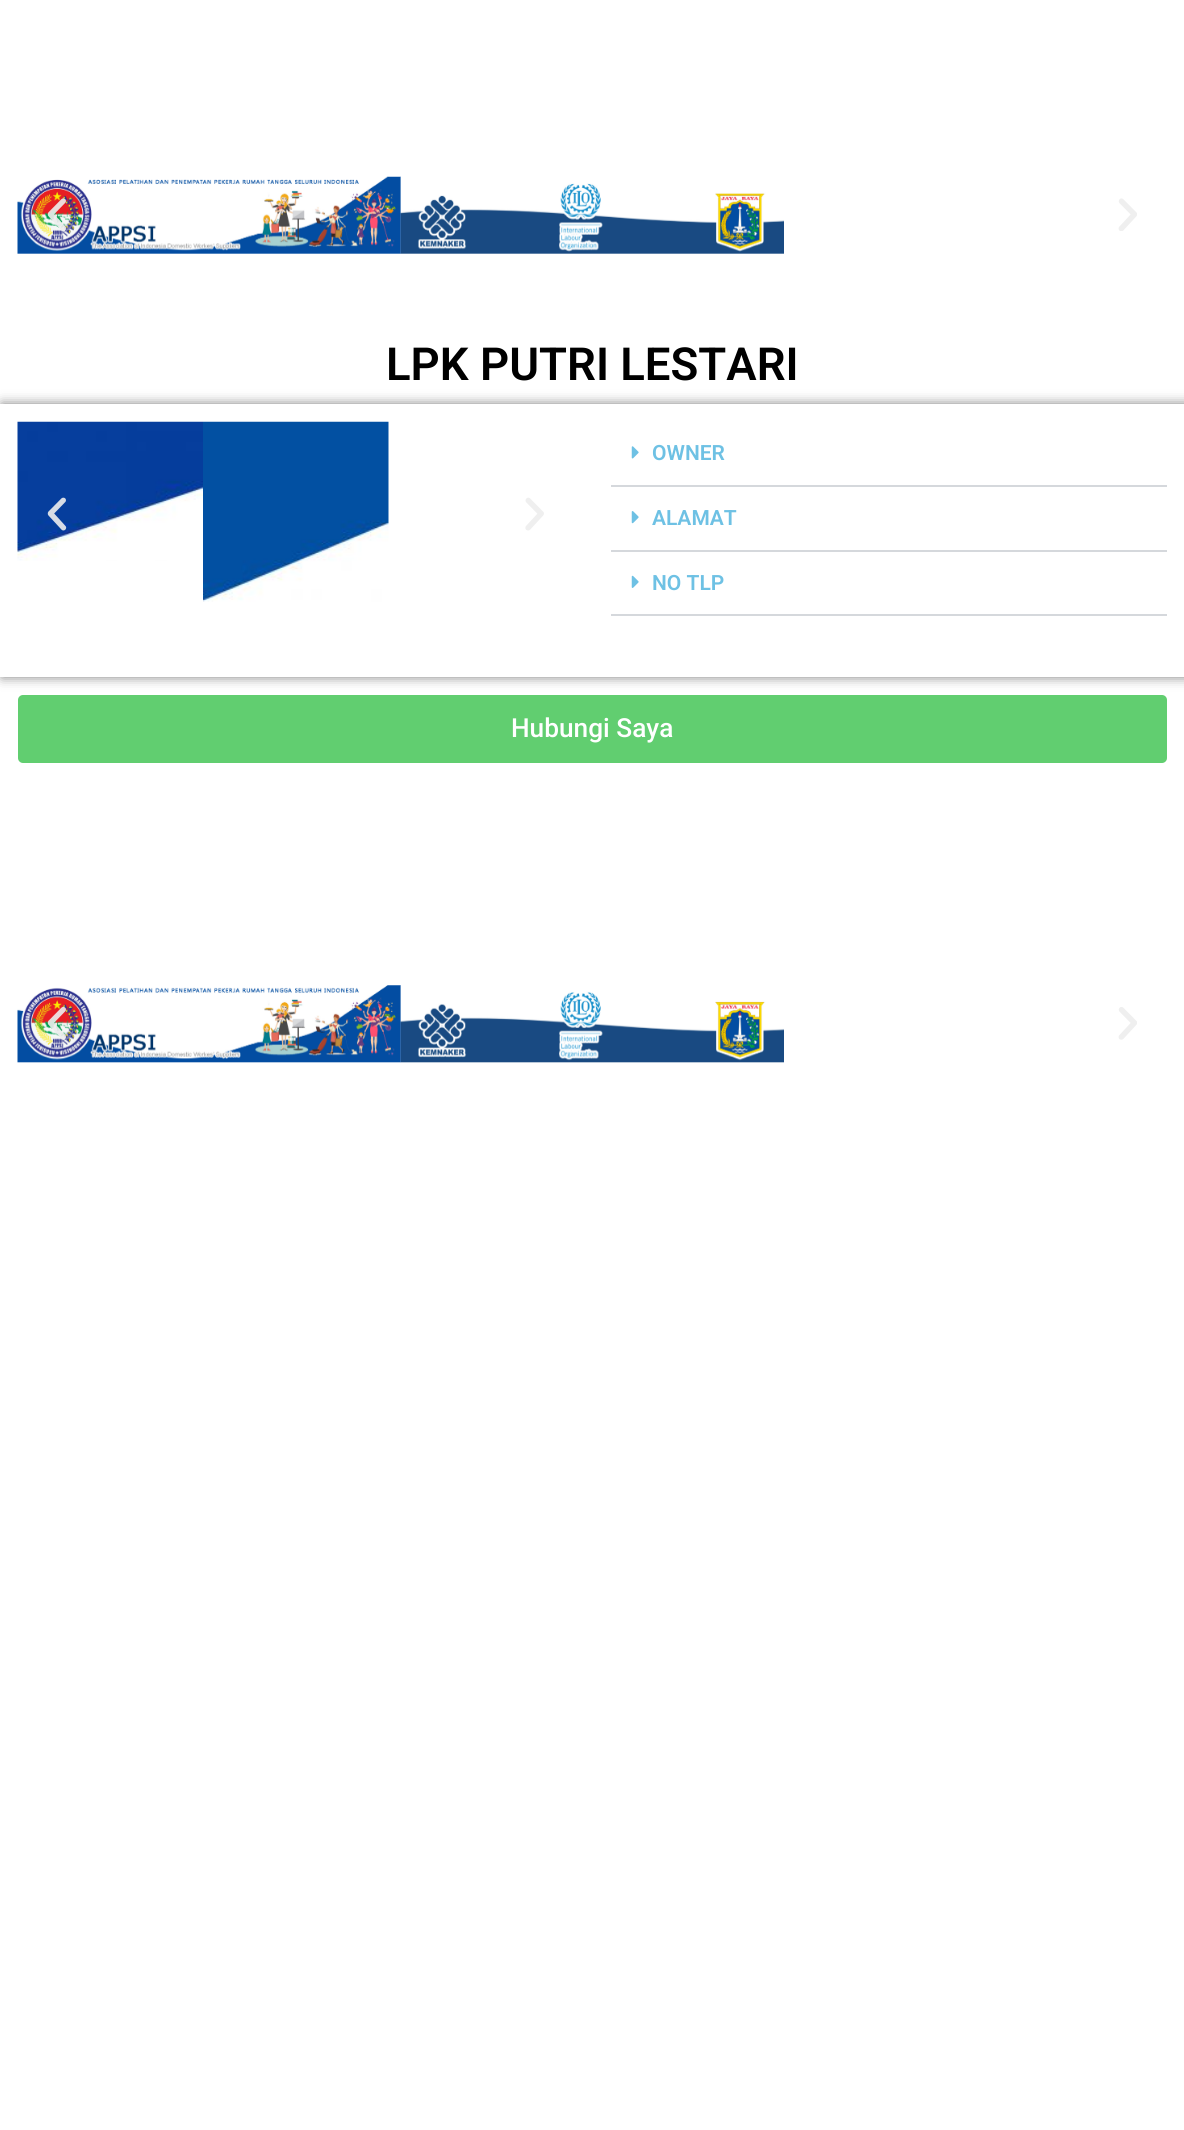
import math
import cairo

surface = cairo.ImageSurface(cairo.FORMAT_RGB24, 1184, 2130)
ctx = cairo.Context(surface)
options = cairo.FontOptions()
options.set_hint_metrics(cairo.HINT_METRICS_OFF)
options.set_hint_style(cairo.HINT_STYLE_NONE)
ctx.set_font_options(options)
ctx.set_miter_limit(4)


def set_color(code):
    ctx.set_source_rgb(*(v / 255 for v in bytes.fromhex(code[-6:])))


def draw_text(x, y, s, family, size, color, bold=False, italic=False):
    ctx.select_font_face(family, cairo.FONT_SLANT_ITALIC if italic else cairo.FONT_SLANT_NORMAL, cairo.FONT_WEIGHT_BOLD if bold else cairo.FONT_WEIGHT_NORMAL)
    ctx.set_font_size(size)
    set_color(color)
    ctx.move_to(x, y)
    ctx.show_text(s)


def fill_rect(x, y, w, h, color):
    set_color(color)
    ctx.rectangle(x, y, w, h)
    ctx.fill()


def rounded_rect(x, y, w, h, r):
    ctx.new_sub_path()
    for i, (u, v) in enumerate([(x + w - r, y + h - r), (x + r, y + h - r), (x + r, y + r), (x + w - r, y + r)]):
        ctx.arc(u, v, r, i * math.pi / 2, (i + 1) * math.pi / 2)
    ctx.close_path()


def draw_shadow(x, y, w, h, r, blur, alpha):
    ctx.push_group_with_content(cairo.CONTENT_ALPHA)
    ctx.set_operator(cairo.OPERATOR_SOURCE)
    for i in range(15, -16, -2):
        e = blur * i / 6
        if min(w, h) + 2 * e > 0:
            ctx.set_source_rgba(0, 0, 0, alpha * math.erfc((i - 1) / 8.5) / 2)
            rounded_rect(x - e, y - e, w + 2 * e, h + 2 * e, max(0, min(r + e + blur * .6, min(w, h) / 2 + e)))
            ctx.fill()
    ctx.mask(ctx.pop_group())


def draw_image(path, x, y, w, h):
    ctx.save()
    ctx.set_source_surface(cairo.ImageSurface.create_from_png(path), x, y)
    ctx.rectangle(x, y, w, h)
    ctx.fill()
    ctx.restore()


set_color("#ffffff")
ctx.paint()
draw_image("assets/img1.png", 17, 176, 384, 78)
draw_image("assets/img2.png", 400, 177, 384, 77)
draw_image("assets/img3.png", 47, 198, 20, 34)
draw_image("assets/img4.png", 1118, 198, 19, 33)
draw_text(386, 380, "LPK PUTRI LESTARI", "Roboto SemiBold", 45.5, "#000000")
set_color("#000000")
draw_shadow(2, 404, 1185, 273, 0, 6, 0.5)
fill_rect(0, 404, 1184, 273, "#ffffff")
draw_image("assets/img5.png", 17, 421, 186, 140)
draw_image("assets/img6.png", 203, 421, 186, 181)
draw_image("assets/img7.png", 47, 497, 20, 34)
draw_image("assets/img8.png", 525, 497, 19, 34)
fill_rect(611, 485, 556, 2, "#d5d8dc")
draw_image("assets/img9.png", 631, 446, 8, 13)
draw_text(652, 460, "OWNER", "Roboto SemiBold", 21, "#6ec1e4")
fill_rect(611, 550, 556, 2, "#d5d8dc")
draw_image("assets/img10.png", 631, 511, 8, 13)
draw_text(652, 525, "ALAMAT", "Roboto SemiBold", 21, "#6ec1e4")
fill_rect(611, 614, 556, 2, "#d5d8dc")
draw_image("assets/img11.png", 631, 575, 8, 13)
draw_text(652, 590, "NO TLP", "Roboto SemiBold", 21, "#6ec1e4")
set_color("#61ce70")
rounded_rect(18, 695, 1149, 68, 5)
ctx.fill()
draw_text(511, 737, "Hubungi Saya", "Roboto Medium", 26.25, "#ffffff")
draw_image("assets/img12.png", 17, 985, 384, 78)
draw_image("assets/img13.png", 400, 985, 384, 78)
draw_image("assets/img14.png", 47, 1006, 20, 34)
draw_image("assets/img15.png", 1118, 1007, 19, 33)
surface.write_to_png("output.png")
